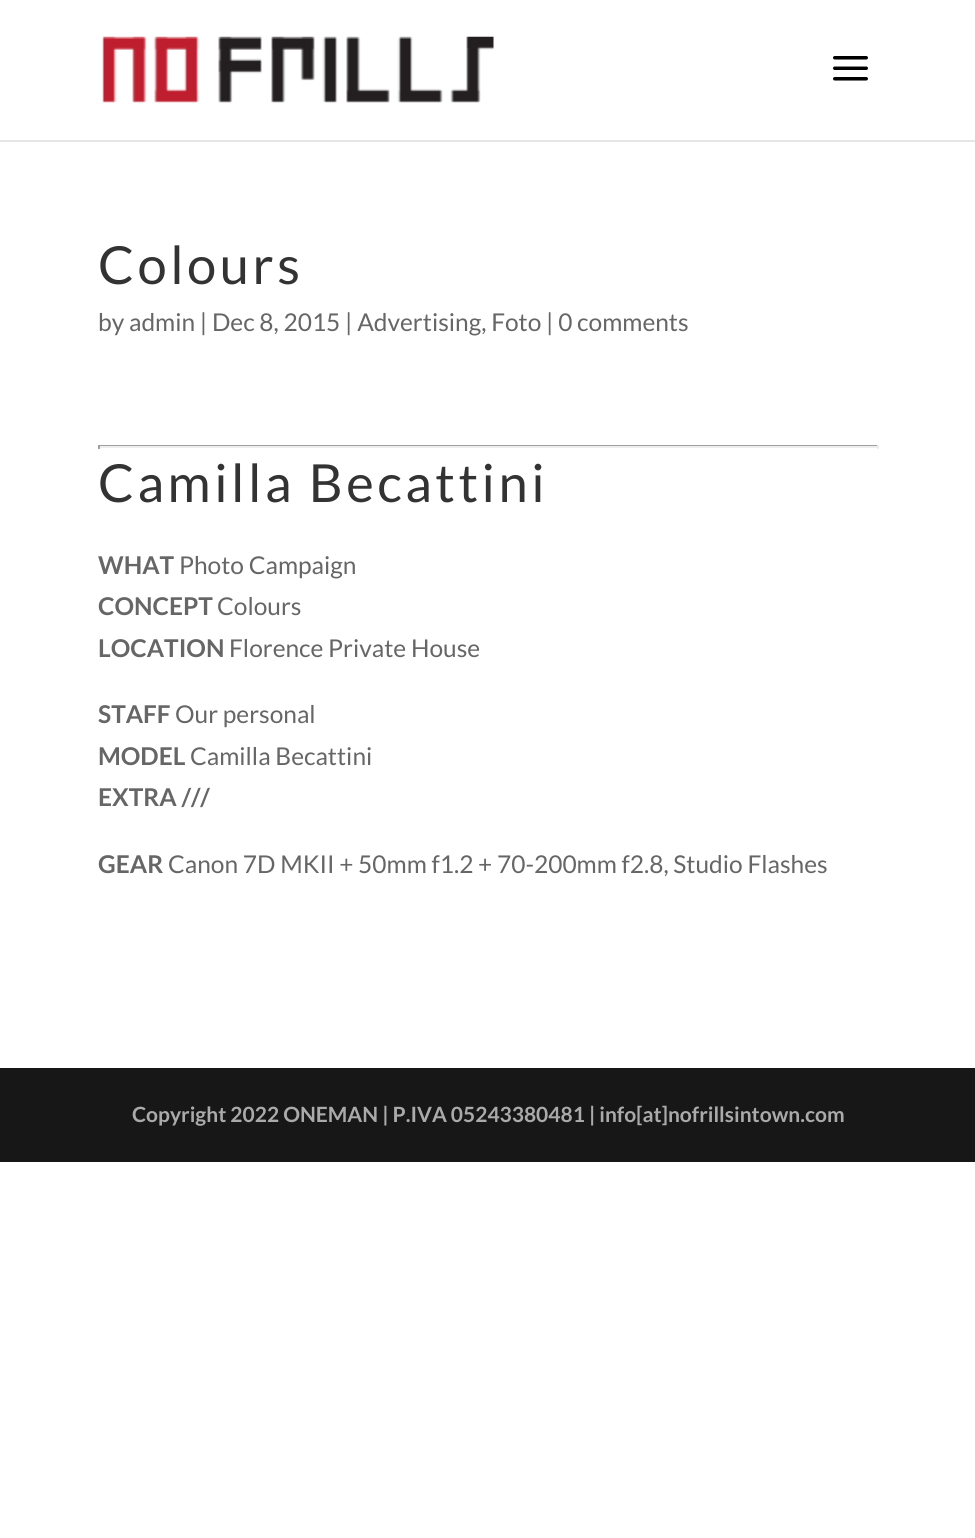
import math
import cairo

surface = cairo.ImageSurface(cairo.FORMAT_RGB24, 975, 1538)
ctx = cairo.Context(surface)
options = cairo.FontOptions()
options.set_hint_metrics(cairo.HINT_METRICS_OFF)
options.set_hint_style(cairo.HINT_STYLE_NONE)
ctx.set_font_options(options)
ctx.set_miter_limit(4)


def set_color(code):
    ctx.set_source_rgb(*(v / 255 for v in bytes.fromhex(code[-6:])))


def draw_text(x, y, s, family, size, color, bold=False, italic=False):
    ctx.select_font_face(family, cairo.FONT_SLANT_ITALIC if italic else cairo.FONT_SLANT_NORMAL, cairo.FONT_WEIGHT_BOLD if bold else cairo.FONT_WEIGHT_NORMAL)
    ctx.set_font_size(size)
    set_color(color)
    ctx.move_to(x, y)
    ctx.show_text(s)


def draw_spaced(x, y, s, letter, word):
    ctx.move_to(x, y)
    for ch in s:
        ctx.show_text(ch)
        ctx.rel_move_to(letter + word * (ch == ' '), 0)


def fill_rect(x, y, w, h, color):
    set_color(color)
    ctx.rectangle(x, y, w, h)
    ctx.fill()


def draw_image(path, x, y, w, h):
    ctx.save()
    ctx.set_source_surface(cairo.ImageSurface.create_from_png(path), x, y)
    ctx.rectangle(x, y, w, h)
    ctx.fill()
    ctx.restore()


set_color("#ffffff")
ctx.paint()
set_color("#e6e6e6")
ctx.new_path()
ctx.move_to(0, 140)
ctx.line_to(0, 142)
ctx.line_to(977, 142)
ctx.line_to(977, 2)
ctx.line_to(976, 2)
ctx.line_to(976, 140)
ctx.close_path()
ctx.fill()
draw_image("assets/img1.png", 102, 36, 392, 67)
draw_image("assets/img2.png", 833, 56, 35, 25)
ctx.select_font_face("Lato")
ctx.set_font_size(52.5)
set_color("#333333")
draw_spaced(98, 284, "Colours", 3.5, 0)
draw_text(98, 331, "by admin | Dec 8, 2015 | Advertising, Foto | 0 comments", "Lato", 24.5, "#666666")
fill_rect(98, 445, 781, 1, "#9f9f9f")
fill_rect(877, 445, 2, 4, "#eeeeee")
fill_rect(98, 446, 781, 2, "#eeeeee")
fill_rect(98, 445, 2, 4, "#9f9f9f")
ctx.set_font_size(52.5)
set_color("#333333")
draw_spaced(98, 502, "Camilla Becattini", 3.5, 0)
draw_text(98, 574, "WHAT", "Lato", 24.5, "#666666", bold=True)
draw_text(179, 574, "Photo Campaign", "Lato", 24.5, "#666666")
draw_text(98, 615, "CONCEPT", "Lato", 24.5, "#666666", bold=True)
draw_text(217, 615, "Colours", "Lato", 24.5, "#666666")
draw_text(98, 657, "LOCATION", "Lato", 24.5, "#666666", bold=True)
draw_text(229, 657, "Florence Private House", "Lato", 24.5, "#666666")
draw_text(98, 723, "STAFF", "Lato", 24.5, "#666666", bold=True)
draw_text(175, 723, "Our personal", "Lato", 24.5, "#666666")
draw_text(98, 765, "MODEL", "Lato", 24.5, "#666666", bold=True)
draw_text(190, 765, "Camilla Becattini", "Lato", 24.5, "#666666")
draw_text(98, 806, "EXTRA ///", "Lato", 24.5, "#666666", bold=True)
draw_text(98, 873, "GEAR", "Lato", 24.5, "#666666", bold=True)
draw_text(168, 873, "Canon 7D MKII + 50mm f1.2 + 70-200mm f2.8, Studio Flashes", "Lato", 24.5, "#666666")
fill_rect(0, 1068, 975, 94, "#171717")
draw_text(132, 1122, "Copyright 2022 ONEMAN | P.IVA 05243380481 | info[at]nofrillsintown.com", "Lato", 21, "#aaaaaa", bold=True)
surface.write_to_png("output.png")
